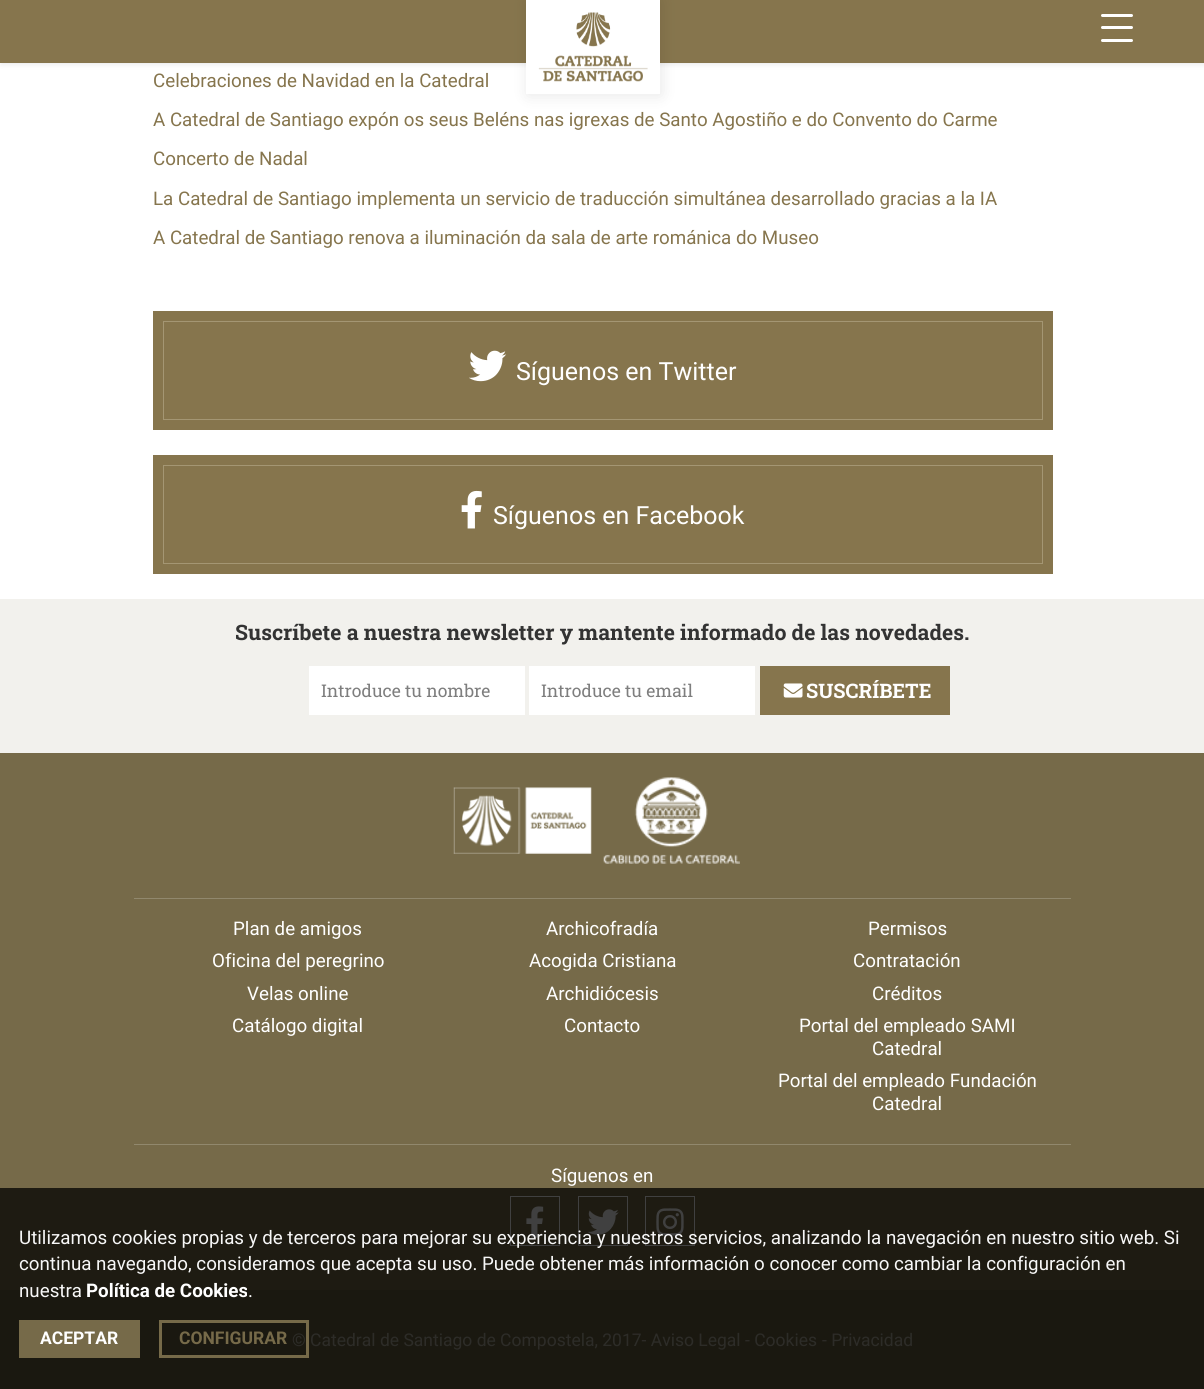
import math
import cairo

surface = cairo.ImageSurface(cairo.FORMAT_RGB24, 1204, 1389)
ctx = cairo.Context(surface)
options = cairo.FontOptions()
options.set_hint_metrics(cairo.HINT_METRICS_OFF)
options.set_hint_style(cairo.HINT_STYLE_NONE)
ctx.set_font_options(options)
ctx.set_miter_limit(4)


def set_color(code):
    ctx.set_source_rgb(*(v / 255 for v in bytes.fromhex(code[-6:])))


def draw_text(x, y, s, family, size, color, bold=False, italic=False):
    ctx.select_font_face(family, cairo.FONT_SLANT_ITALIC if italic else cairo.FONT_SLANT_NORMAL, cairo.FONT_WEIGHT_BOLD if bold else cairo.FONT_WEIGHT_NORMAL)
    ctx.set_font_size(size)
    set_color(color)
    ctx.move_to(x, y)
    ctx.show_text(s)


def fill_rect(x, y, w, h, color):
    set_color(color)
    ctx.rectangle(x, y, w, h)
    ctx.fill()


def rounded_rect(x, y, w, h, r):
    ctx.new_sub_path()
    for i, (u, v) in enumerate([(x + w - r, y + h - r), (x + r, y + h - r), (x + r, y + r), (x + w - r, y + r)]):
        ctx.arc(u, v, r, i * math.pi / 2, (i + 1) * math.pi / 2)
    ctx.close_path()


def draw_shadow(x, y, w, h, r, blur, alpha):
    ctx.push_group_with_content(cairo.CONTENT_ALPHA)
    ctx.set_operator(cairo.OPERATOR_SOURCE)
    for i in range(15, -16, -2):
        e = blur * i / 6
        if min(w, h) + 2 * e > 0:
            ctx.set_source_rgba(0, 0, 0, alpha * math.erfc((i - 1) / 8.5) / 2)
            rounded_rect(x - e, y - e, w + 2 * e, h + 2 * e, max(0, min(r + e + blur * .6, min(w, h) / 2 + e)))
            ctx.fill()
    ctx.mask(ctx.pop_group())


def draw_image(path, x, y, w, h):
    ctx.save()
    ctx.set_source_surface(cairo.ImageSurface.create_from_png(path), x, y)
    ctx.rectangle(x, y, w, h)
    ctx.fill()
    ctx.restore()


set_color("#ffffff")
ctx.paint()
set_color("#000000")
draw_shadow(1, 1, 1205, 63, 0, 3, 0.1)
fill_rect(0, 0, 1204, 63, "#86754d")
set_color("#ffffff")
rounded_rect(1101, 26, 32, 3, 1.5)
ctx.fill()
rounded_rect(1101, 14, 32, 3, 1.5)
ctx.fill()
rounded_rect(1101, 39, 32, 3, 1.5)
ctx.fill()
set_color("#000000")
draw_shadow(528, 1, 133, 94, 0, 7.5, 0.1)
fill_rect(526, 0, 134, 94, "#ffffff")
draw_image("assets/img1.png", 538, 12, 110, 70)
draw_text(153, 87, "Celebraciones de Navidad en la Catedral", "Roboto", 18.75, "#86754d")
draw_text(153, 126, "A Catedral de Santiago expón os seus Beléns nas igrexas de Santo Agostiño e do Convento do Carme", "Roboto", 18.75, "#86754d")
draw_text(153, 165, "Concerto de Nadal", "Roboto", 18.75, "#86754d")
draw_text(153, 205, "La Catedral de Santiago implementa un servicio de traducción simultánea desarrollado gracias a la IA", "Roboto", 18.75, "#86754d")
draw_text(153, 244, "A Catedral de Santiago renova a iluminación da sala de arte románica do Museo", "Roboto", 18.75, "#86754d")
fill_rect(153, 311, 900, 119, "#86754d")
ctx.rectangle(163.5, 321.5, 879, 98)
set_color("#a49673")
ctx.set_line_width(1)
ctx.stroke()
draw_image("assets/img2.png", 469, 350, 38, 32)
draw_text(516, 380, "Síguenos en Twitter", "Roboto", 25, "#ffffff")
fill_rect(153, 455, 900, 119, "#86754d")
ctx.rectangle(163.5, 465.5, 879, 98)
set_color("#a49673")
ctx.stroke()
draw_image("assets/img3.png", 461, 490, 21, 39)
draw_text(493, 524, "Síguenos en Facebook", "Roboto", 25, "#ffffff")
fill_rect(0, 599, 1204, 154, "#f2f1ed")
draw_text(235, 640, "Suscríbete a nuestra newsletter y mantente informado de las novedades.", "Roboto Slab", 21.25, "#333333", bold=True)
fill_rect(309, 666, 216, 49, "#ffffff")
draw_text(321, 697, "Introduce tu nombre", "Roboto Slab", 17.5, "#7e7e7e")
fill_rect(529, 666, 226, 49, "#ffffff")
draw_text(541, 697, "Introduce tu email", "Roboto Slab", 17.5, "#7e7e7e")
fill_rect(760, 666, 190, 49, "#86754d")
draw_image("assets/img4.png", 783, 683, 20, 15)
draw_text(806, 698, "SUSCRÍBETE", "Roboto Slab", 20, "#ffffff", bold=True)
fill_rect(0, 753, 1204, 435, "#766a49")
fill_rect(0, 1188, 1204, 102, "#1e1b12")
draw_image("assets/img5.png", 453, 787, 139, 67)
draw_image("assets/img6.png", 603, 777, 137, 87)
fill_rect(134, 898, 937, 1, "#91886d")
draw_text(233, 935, "Plan de amigos", "Roboto", 18.75, "#ffffff")
draw_text(546, 935, "Archicofradía", "Roboto", 18.75, "#ffffff")
draw_text(868, 935, "Permisos", "Roboto", 18.75, "#ffffff")
draw_text(212, 967, "Oficina del peregrino", "Roboto", 18.75, "#ffffff")
draw_text(529, 967, "Acogida Cristiana", "Roboto", 18.75, "#ffffff")
draw_text(853, 967, "Contratación", "Roboto", 18.75, "#ffffff")
draw_text(247, 1000, "Velas online", "Roboto", 18.75, "#ffffff")
draw_text(546, 1000, "Archidiócesis", "Roboto", 18.75, "#ffffff")
draw_text(872, 1000, "Créditos", "Roboto", 18.75, "#ffffff")
draw_text(232, 1032, "Catálogo digital", "Roboto", 18.75, "#ffffff")
draw_text(564, 1032, "Contacto", "Roboto", 18.75, "#ffffff")
draw_text(799, 1032, "Portal del empleado SAMI", "Roboto", 18.75, "#ffffff")
draw_text(872, 1055, "Catedral", "Roboto", 18.75, "#ffffff")
draw_text(778, 1087, "Portal del empleado Fundación", "Roboto", 18.75, "#ffffff")
draw_text(872, 1110, "Catedral", "Roboto", 18.75, "#ffffff")
fill_rect(134, 1144, 937, 1, "#91886d")
draw_text(551, 1182, "Síguenos en", "Roboto", 18.75, "#ffffff")
ctx.rectangle(510.5, 1196.5, 49, 49)
set_color("#404040")
ctx.stroke()
draw_image("assets/img7.png", 526, 1206, 18, 32)
ctx.rectangle(578.5, 1196.5, 49, 49)
ctx.stroke()
draw_image("assets/img8.png", 587, 1209, 32, 26)
ctx.rectangle(645.5, 1196.5, 49, 49)
ctx.stroke()
draw_image("assets/img9.png", 656, 1208, 28, 28)
fill_rect(0, 1290, 1204, 99, "#1a1810")
draw_text(292, 1346, "© Catedral de Santiago de Compostela, 2017- Aviso Legal", "Roboto", 17.5, "#2d2c28")
draw_text(745, 1346, "- Cookies", "Roboto", 17.5, "#2d2c28")
draw_text(822, 1346, "- Privacidad", "Roboto", 17.5, "#2d2c28")
draw_text(19, 1244, "Utilizamos cookies propias y de terceros para mejorar su experiencia y nuestros servicios, analizando la navegación en nuestro sitio web. Si", "Roboto", 18.75, "#f7f7f7")
draw_text(19, 1270, "continua navegando, consideramos que acepta su uso. Puede obtener más información o conocer como cambiar la configuración en", "Roboto", 18.75, "#f7f7f7")
draw_text(19, 1297, "nuestra", "Roboto", 18.75, "#f7f7f7")
draw_text(86, 1297, "Política de Cookies", "Roboto", 18.75, "#ffffff", bold=True)
draw_text(248, 1297, ".", "Roboto", 18.75, "#f7f7f7")
fill_rect(19, 1320, 121, 38, "#766a49")
draw_text(40, 1344, "ACEPTAR", "Roboto", 17.5, "#ffffff", bold=True)
ctx.rectangle(160.5, 1321.5, 147, 35)
set_color("#766a49")
ctx.set_line_width(3)
ctx.stroke()
draw_text(179, 1344, "CONFIGURAR", "Roboto", 17.5, "#766a49", bold=True)
surface.write_to_png("output.png")
